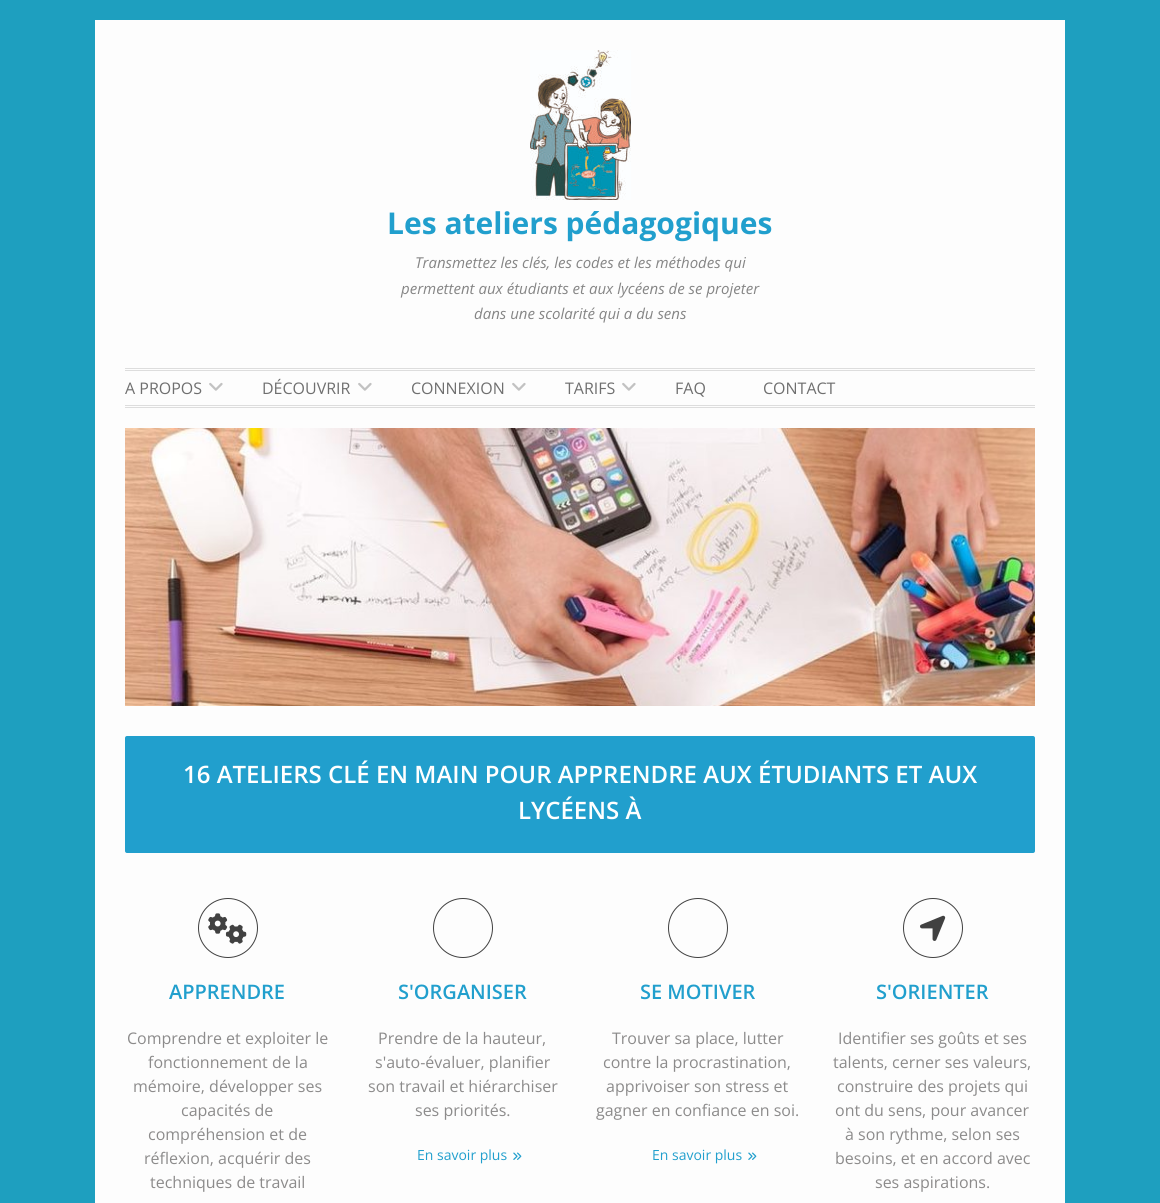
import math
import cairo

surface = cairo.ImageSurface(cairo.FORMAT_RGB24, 1160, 1203)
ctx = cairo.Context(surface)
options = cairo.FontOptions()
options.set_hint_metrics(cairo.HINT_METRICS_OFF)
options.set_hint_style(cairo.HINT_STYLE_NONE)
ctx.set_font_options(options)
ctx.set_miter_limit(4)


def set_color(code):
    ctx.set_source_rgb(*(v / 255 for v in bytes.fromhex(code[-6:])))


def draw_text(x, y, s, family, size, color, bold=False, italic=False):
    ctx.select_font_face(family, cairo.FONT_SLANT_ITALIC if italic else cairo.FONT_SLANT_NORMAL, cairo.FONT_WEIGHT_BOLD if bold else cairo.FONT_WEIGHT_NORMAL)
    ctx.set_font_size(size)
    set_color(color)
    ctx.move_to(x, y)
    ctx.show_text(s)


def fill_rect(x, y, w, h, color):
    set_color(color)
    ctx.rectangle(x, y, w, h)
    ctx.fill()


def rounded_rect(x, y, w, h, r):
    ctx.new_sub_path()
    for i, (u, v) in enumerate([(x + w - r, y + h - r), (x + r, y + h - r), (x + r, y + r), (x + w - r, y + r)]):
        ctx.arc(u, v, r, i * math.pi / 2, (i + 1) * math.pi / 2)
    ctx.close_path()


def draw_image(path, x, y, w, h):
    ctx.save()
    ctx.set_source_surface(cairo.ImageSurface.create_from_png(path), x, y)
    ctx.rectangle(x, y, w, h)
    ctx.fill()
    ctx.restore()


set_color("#1e9fbf")
ctx.paint()
fill_rect(95, 20, 970, 1183, "#fdfdfd")
draw_image("assets/img1.png", 530, 50, 101, 150)
draw_text(387, 234, "Les ateliers pédagogiques", "Open Sans", 30, "#219fcd", bold=True)
draw_text(415, 268, "Transmettez les clés, les codes et les méthodes qui", "Open Sans", 15, "#858585", italic=True)
draw_text(401, 294, "permettent aux étudiants et aux lycéens de se projeter", "Open Sans", 15, "#858585", italic=True)
draw_text(474, 319, "dans une scolarité qui a du sens", "Open Sans", 15, "#858585", italic=True)
fill_rect(125, 368, 910, 1, "#dddddd")
fill_rect(125, 370, 910, 1, "#dddddd")
fill_rect(125, 405, 910, 1, "#dddddd")
fill_rect(125, 407, 910, 1, "#dddddd")
draw_text(125, 394, "A PROPOS", "Open Sans", 16, "#6f6f6f")
draw_image("assets/img2.png", 209, 382, 14, 9)
draw_text(262, 394, "DÉCOUVRIR", "Open Sans", 16, "#6f6f6f")
draw_image("assets/img2.png", 358, 382, 14, 9)
draw_text(411, 394, "CONNEXION", "Open Sans", 16, "#6f6f6f")
draw_image("assets/img2.png", 512, 382, 14, 9)
draw_text(565, 394, "TARIFS", "Open Sans", 16, "#6f6f6f")
draw_image("assets/img2.png", 622, 382, 14, 9)
draw_text(675, 394, "FAQ", "Open Sans", 16, "#6f6f6f")
draw_text(763, 394, "CONTACT", "Open Sans", 16, "#6f6f6f")
draw_image("assets/img3.png", 125, 428, 910, 278)
set_color("#219fcd")
rounded_rect(125, 736, 910, 117, 2)
ctx.fill()
draw_text(183, 783, "16 ATELIERS CLÉ EN MAIN POUR APPRENDRE AUX ÉTUDIANTS ET AUX", "Open Sans SemiBold", 24, "#ffffff")
draw_text(518, 819, "LYCÉENS À", "Open Sans SemiBold", 24, "#ffffff")
ctx.new_path()
ctx.arc(228, 928, 29.5, 0, 2 * math.pi)
set_color("#414141")
ctx.set_line_width(1)
ctx.stroke()
draw_image("assets/img4.png", 208, 913, 39, 31)
draw_text(169, 999, "APPRENDRE", "Open Sans SemiBold", 20, "#219fcd")
draw_text(127, 1044, "Comprendre et exploiter le", "Open Sans", 16, "#8c8b8b")
draw_text(148, 1068, "fonctionnement de la", "Open Sans", 16, "#8c8b8b")
draw_text(133, 1092, "mémoire, développer ses", "Open Sans", 16, "#8c8b8b")
draw_text(181, 1116, "capacités de", "Open Sans", 16, "#8c8b8b")
draw_text(148, 1140, "compréhension et de", "Open Sans", 16, "#8c8b8b")
draw_text(144, 1164, "réflexion, acquérir des", "Open Sans", 16, "#8c8b8b")
draw_text(150, 1188, "techniques de travail", "Open Sans", 16, "#8c8b8b")
ctx.new_path()
ctx.arc(463, 928, 29.5, 0, 2 * math.pi)
set_color("#414141")
ctx.stroke()
draw_text(398, 999, "S'ORGANISER", "Open Sans SemiBold", 20, "#219fcd")
draw_text(378, 1044, "Prendre de la hauteur,", "Open Sans", 16, "#8c8b8b")
draw_text(375, 1068, "s'auto-évaluer, planifier", "Open Sans", 16, "#8c8b8b")
draw_text(368, 1092, "son travail et hiérarchiser", "Open Sans", 16, "#8c8b8b")
draw_text(415, 1116, "ses priorités.", "Open Sans", 16, "#8c8b8b")
draw_text(417, 1160, "En savoir plus", "Open Sans", 14, "#219fcd")
draw_image("assets/img5.png", 513, 1152, 9, 8)
ctx.arc(698, 928, 29.5, 0, 2 * math.pi)
set_color("#414141")
ctx.stroke()
draw_text(640, 999, "SE MOTIVER", "Open Sans SemiBold", 20, "#219fcd")
draw_text(612, 1044, "Trouver sa place, lutter", "Open Sans", 16, "#8c8b8b")
draw_text(603, 1068, "contre la procrastination,", "Open Sans", 16, "#8c8b8b")
draw_text(606, 1092, "apprivoiser son stress et", "Open Sans", 16, "#8c8b8b")
draw_text(596, 1116, "gagner en confiance en soi.", "Open Sans", 16, "#8c8b8b")
draw_text(652, 1160, "En savoir plus", "Open Sans", 14, "#219fcd")
draw_image("assets/img5.png", 748, 1152, 9, 8)
ctx.arc(933, 928, 29.5, 0, 2 * math.pi)
set_color("#414141")
ctx.stroke()
draw_image("assets/img6.png", 920, 915, 26, 26)
draw_text(876, 999, "S'ORIENTER", "Open Sans SemiBold", 20, "#219fcd")
draw_text(838, 1044, "Identifier ses goûts et ses", "Open Sans", 16, "#8c8b8b")
draw_text(833, 1068, "talents, cerner ses valeurs,", "Open Sans", 16, "#8c8b8b")
draw_text(837, 1092, "construire des projets qui", "Open Sans", 16, "#8c8b8b")
draw_text(835, 1116, "ont du sens, pour avancer", "Open Sans", 16, "#8c8b8b")
draw_text(845, 1140, "à son rythme, selon ses", "Open Sans", 16, "#8c8b8b")
draw_text(835, 1164, "besoins, et en accord avec", "Open Sans", 16, "#8c8b8b")
draw_text(875, 1188, "ses aspirations.", "Open Sans", 16, "#8c8b8b")
surface.write_to_png("output.png")
